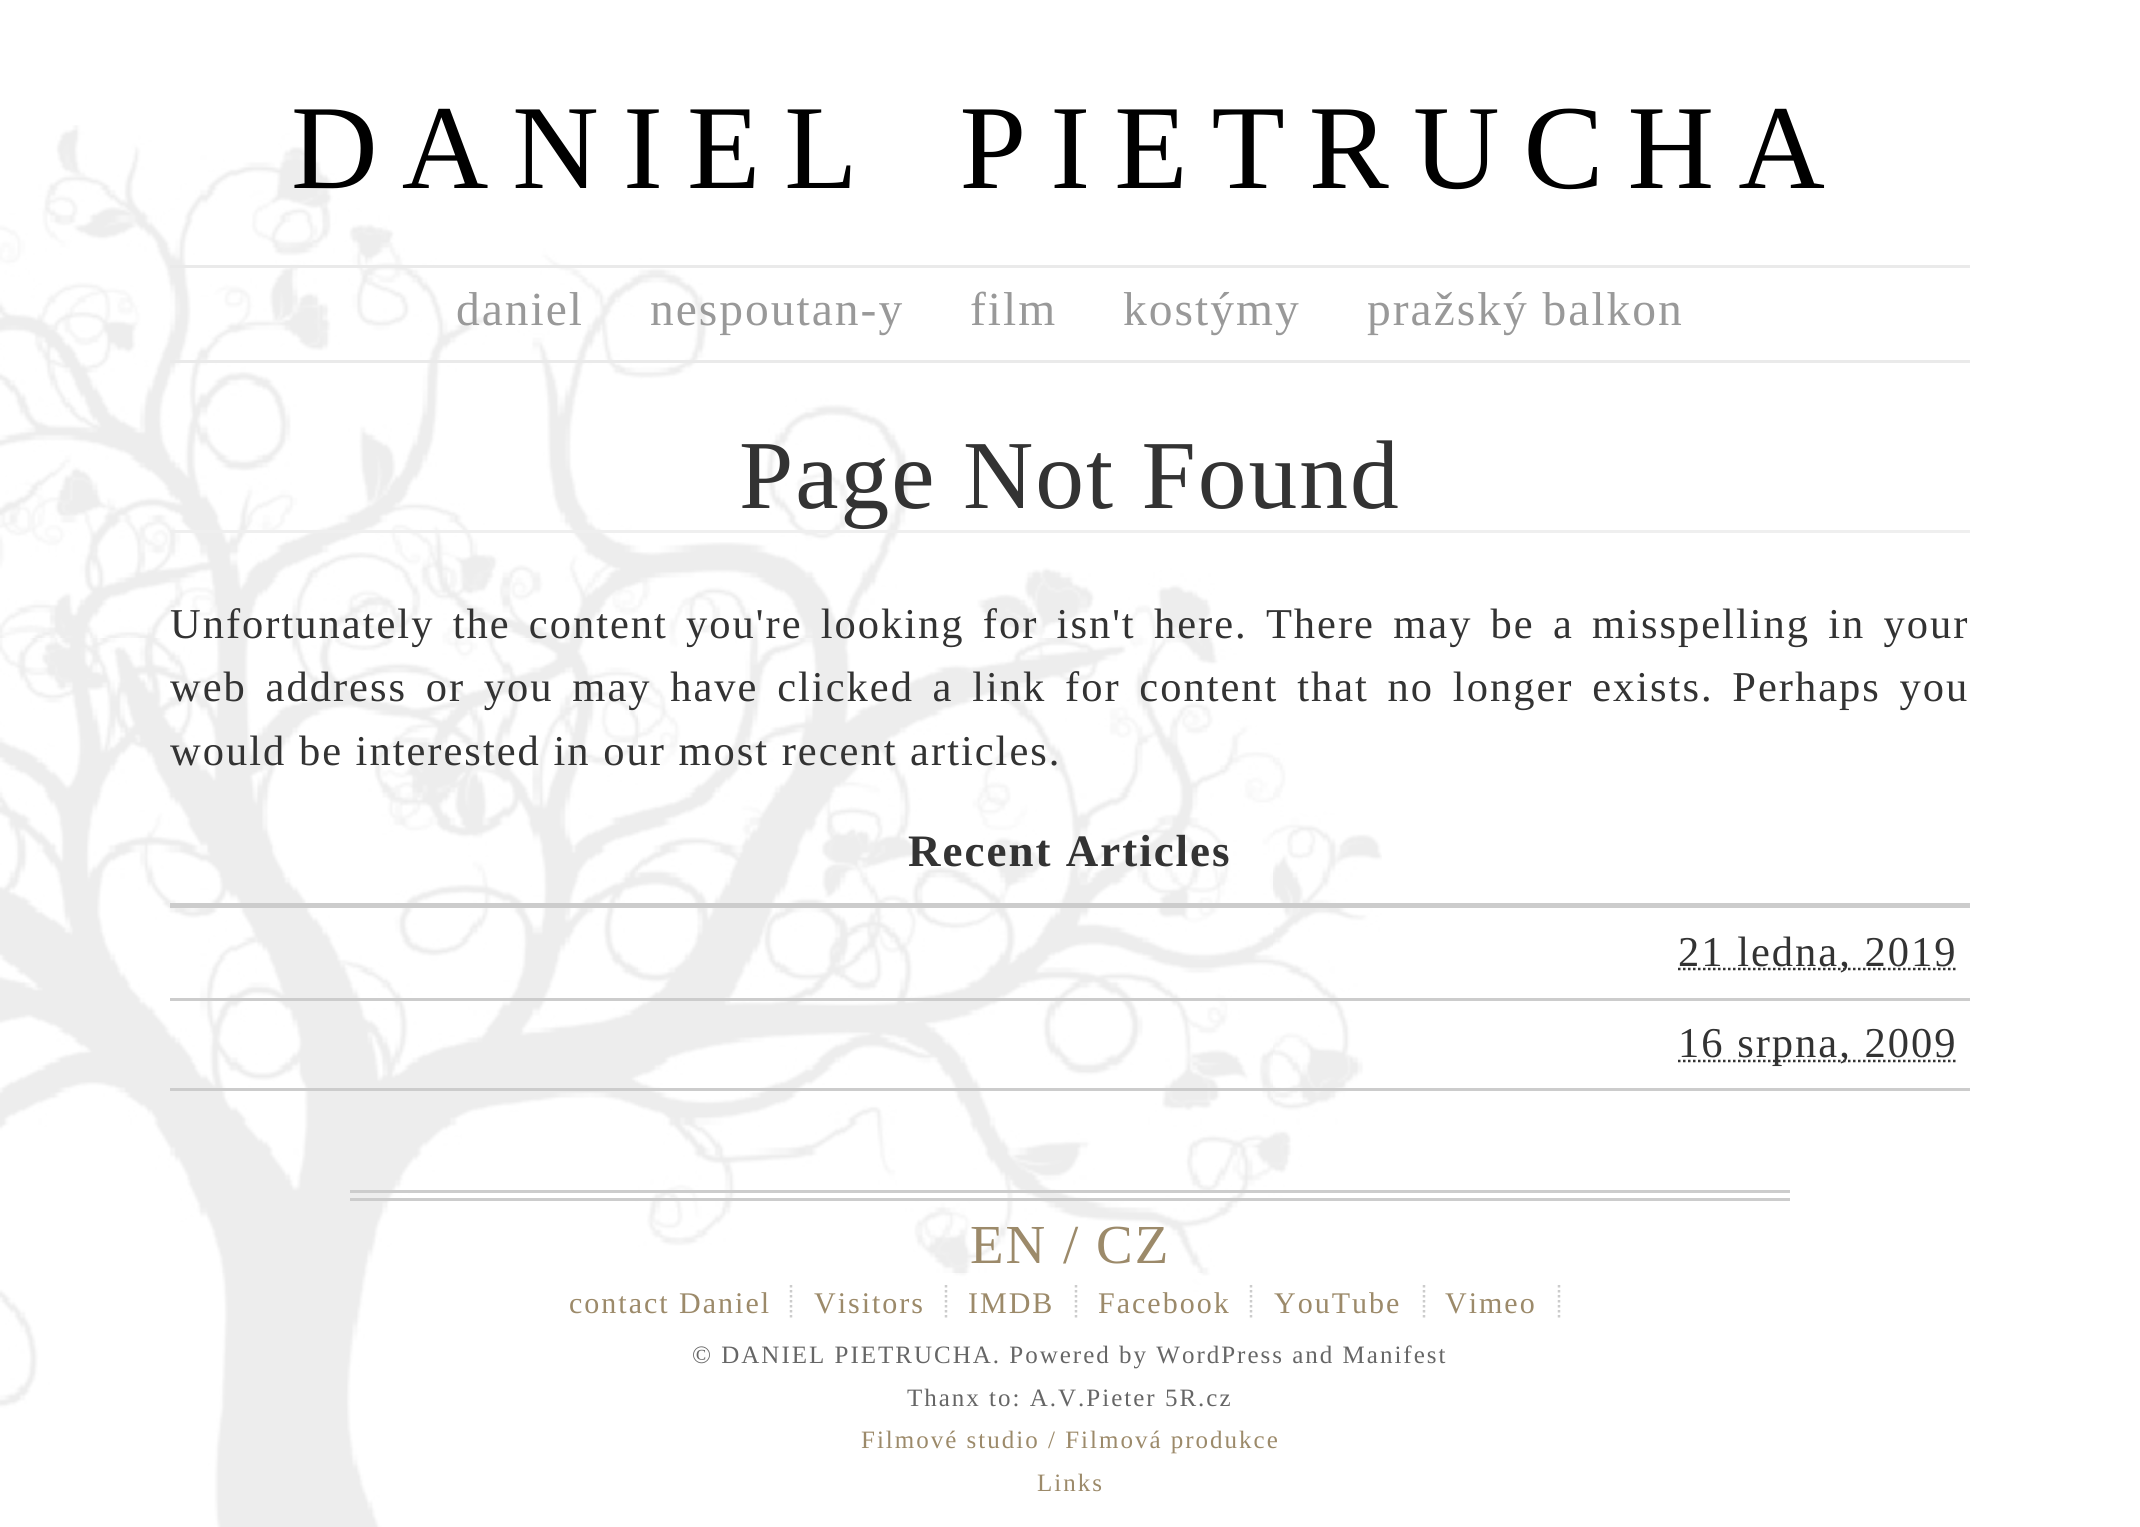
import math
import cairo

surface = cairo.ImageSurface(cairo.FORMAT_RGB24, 2140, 1527)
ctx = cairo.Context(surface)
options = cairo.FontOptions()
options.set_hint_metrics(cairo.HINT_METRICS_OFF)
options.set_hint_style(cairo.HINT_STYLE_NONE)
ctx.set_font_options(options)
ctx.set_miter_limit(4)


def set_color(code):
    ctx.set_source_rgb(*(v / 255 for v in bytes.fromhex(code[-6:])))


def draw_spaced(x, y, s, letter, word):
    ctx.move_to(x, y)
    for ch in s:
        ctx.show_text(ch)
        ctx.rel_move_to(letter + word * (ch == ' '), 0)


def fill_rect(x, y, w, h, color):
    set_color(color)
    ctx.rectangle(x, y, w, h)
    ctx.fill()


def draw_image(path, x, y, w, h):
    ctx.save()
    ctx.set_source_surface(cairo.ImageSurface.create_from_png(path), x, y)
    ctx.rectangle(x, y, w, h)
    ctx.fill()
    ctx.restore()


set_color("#ffffff")
ctx.paint()
draw_image("assets/img1.png", 0, 125, 1382, 1402)
ctx.select_font_face("Liberation Serif")
ctx.set_font_size(120)
set_color("#000000")
draw_spaced(291, 188, "DANIEL PIETRUCHA", 24, 24)
fill_rect(170, 265, 1800, 3, "#eaeaea")
fill_rect(170, 360, 1800, 3, "#eaeaea")
ctx.set_font_size(47.5)
set_color("#999999")
draw_spaced(456, 325, "daniel", 2, 0)
draw_spaced(650, 325, "nespoutan-y", 2, 0)
draw_spaced(970, 325, "film", 2, 0)
draw_spaced(1123, 325, "kostýmy", 2, 0)
draw_spaced(1367, 325, "pražský balkon", 2, 0)
ctx.set_font_size(97.5)
set_color("#333333")
draw_spaced(739, 508, "Page Not Found", 2, 0)
fill_rect(170, 530, 1800, 3, "#efefef")
ctx.set_font_size(42.5)
set_color("#333333")
draw_spaced(170, 638, "Unfortunately the content you're looking for isn't here. There may be a misspelling in your", 2, 5.6)
draw_spaced(170, 701, "web address or you may have clicked a link for content that no longer exists. Perhaps you", 2, 6.1)
draw_spaced(170, 765, "would be interested in our most recent articles.", 2, 0)
ctx.select_font_face("Liberation Serif", cairo.FONT_SLANT_NORMAL, cairo.FONT_WEIGHT_BOLD)
ctx.set_font_size(45)
draw_spaced(908, 866, "Recent Articles", 2, 0)
fill_rect(170, 903, 1800, 5, "#cccccc")
fill_rect(170, 998, 1800, 3, "#cccccc")
ctx.new_path()
ctx.move_to(1678, 969)
ctx.line_to(1957.5, 969)
set_color("#333333")
ctx.set_line_width(2.5)
ctx.set_dash([2.5, 2.5])
ctx.stroke()
ctx.select_font_face("Liberation Serif")
ctx.set_font_size(42.5)
draw_spaced(1678, 966, "21 ledna, 2019", 2, 0)
fill_rect(170, 1088, 1800, 3, "#cccccc")
ctx.new_path()
ctx.move_to(1678, 1061)
ctx.line_to(1957.5, 1061)
set_color("#333333")
ctx.stroke()
draw_spaced(1678, 1057, "16 srpna, 2009", 2, 0)
fill_rect(350, 1190, 1440, 3, "#cccccc")
fill_rect(350, 1198, 1440, 3, "#cccccc")
ctx.set_font_size(55)
set_color("#9c8a6a")
draw_spaced(970, 1263, "EN / CZ", 2, 0)
ctx.set_font_size(30)
draw_spaced(569, 1313, "contact Daniel", 2, 0)
ctx.new_path()
ctx.move_to(791, 1285)
ctx.line_to(791, 1320)
set_color("#cccccc")
ctx.stroke()
set_color("#9c8a6a")
draw_spaced(814, 1313, "Visitors", 2, 0)
ctx.new_path()
ctx.move_to(946, 1285)
ctx.line_to(946, 1320)
set_color("#cccccc")
ctx.stroke()
set_color("#9c8a6a")
draw_spaced(968, 1313, "IMDB", 2, 0)
ctx.new_path()
ctx.move_to(1076, 1285)
ctx.line_to(1076, 1320)
set_color("#cccccc")
ctx.stroke()
set_color("#9c8a6a")
draw_spaced(1098, 1313, "Facebook", 2, 0)
ctx.new_path()
ctx.move_to(1251, 1285)
ctx.line_to(1251, 1320)
set_color("#cccccc")
ctx.stroke()
set_color("#9c8a6a")
draw_spaced(1274, 1313, "YouTube", 2, 0)
ctx.new_path()
ctx.move_to(1424, 1285)
ctx.line_to(1424, 1320)
set_color("#cccccc")
ctx.stroke()
set_color("#9c8a6a")
draw_spaced(1445, 1313, "Vimeo", 2, 0)
ctx.new_path()
ctx.move_to(1559, 1285)
ctx.line_to(1559, 1320)
set_color("#cccccc")
ctx.stroke()
ctx.set_font_size(25)
set_color("#666666")
draw_spaced(692, 1363, "© DANIEL PIETRUCHA. Powered by WordPress and Manifest", 2, 0)
draw_spaced(907, 1406, "Thanx to: A.V.Pieter 5R.cz", 2, 0)
set_color("#9c8a6a")
draw_spaced(861, 1448, "Filmové studio / Filmová produkce", 2, 0)
draw_spaced(1037, 1491, "Links", 2, 0)
surface.write_to_png("output.png")
